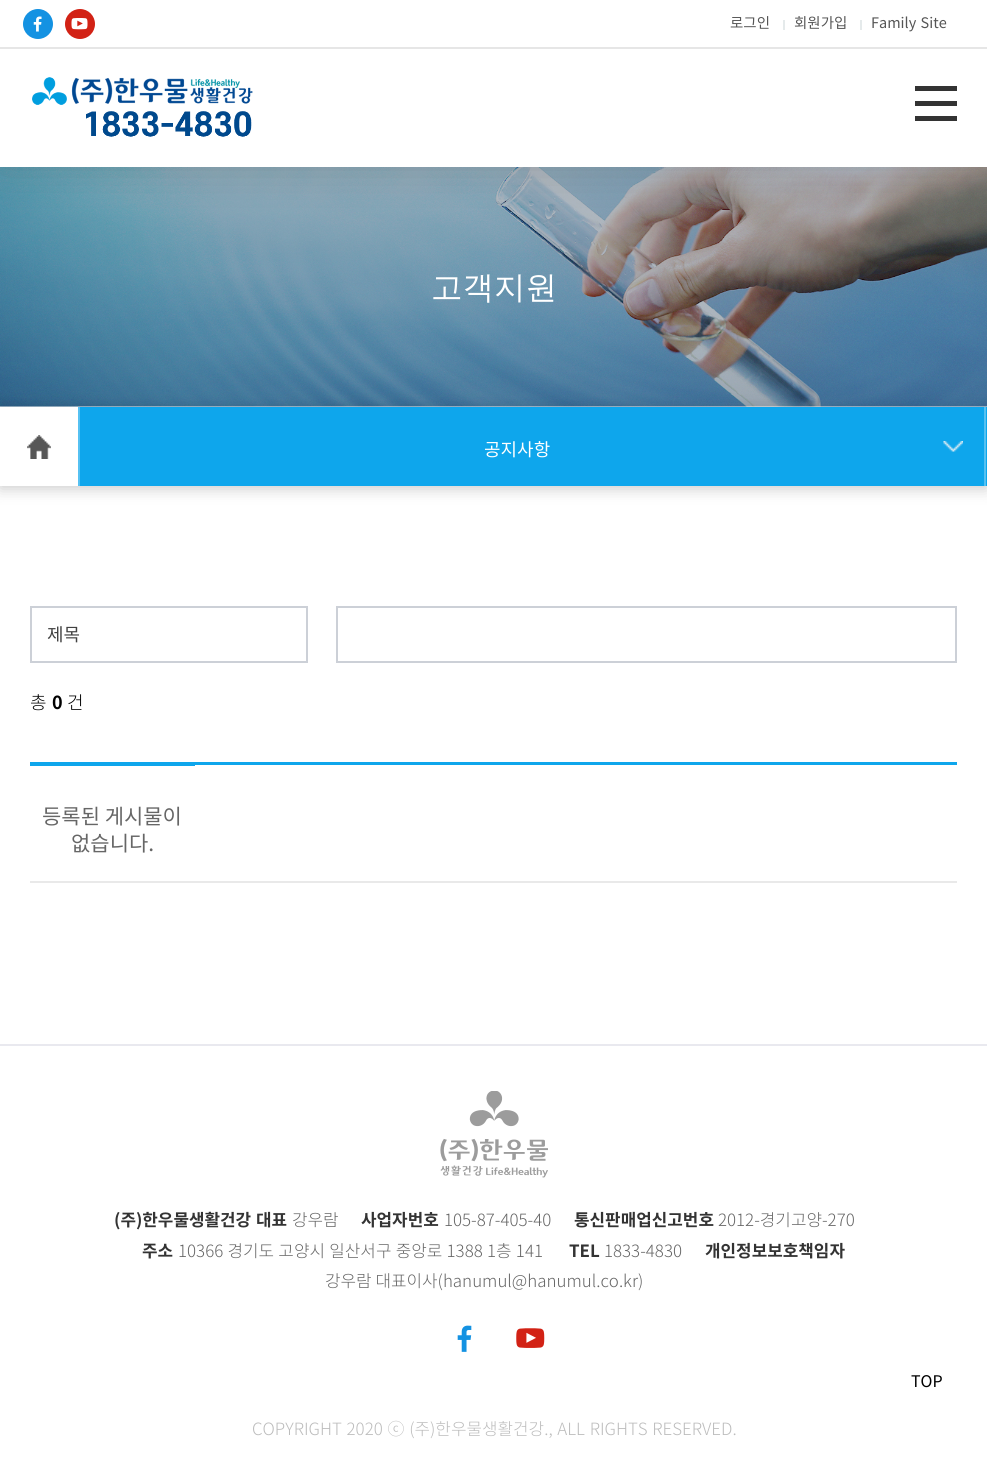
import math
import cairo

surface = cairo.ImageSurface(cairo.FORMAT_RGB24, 987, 1471)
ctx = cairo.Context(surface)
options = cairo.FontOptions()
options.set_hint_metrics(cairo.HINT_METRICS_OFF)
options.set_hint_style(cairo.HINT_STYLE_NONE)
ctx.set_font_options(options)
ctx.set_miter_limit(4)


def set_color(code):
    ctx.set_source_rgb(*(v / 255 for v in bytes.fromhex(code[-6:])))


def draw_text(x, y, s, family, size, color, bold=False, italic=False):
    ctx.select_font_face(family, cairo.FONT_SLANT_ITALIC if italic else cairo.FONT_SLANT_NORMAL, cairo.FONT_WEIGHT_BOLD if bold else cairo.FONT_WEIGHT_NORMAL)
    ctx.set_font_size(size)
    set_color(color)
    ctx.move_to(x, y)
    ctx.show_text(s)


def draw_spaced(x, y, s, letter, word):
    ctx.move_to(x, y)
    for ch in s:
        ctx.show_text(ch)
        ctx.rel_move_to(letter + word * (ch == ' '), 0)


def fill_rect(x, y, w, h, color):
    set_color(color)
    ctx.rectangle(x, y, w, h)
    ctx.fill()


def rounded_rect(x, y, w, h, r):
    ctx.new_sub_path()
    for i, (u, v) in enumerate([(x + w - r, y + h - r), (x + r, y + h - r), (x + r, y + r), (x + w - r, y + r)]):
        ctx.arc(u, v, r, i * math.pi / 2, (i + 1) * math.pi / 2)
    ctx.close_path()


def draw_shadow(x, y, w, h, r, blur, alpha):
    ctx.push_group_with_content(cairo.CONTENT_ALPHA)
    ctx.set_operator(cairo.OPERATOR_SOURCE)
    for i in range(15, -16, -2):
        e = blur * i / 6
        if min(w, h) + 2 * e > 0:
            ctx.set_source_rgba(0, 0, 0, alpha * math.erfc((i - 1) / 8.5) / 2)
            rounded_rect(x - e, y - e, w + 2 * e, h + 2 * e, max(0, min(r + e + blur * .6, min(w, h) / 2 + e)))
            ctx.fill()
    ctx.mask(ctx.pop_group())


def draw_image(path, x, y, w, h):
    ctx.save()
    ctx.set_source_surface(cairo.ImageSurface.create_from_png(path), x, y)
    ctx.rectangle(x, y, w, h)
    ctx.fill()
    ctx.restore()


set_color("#ffffff")
ctx.paint()
draw_image("assets/img4.png", 0, 167, 987, 240)
set_color("#000000")
draw_shadow(0, 0, 987, 167, 0, 22.5, 0.15)
fill_rect(0, 0, 987, 167, "#ffffff")
set_color("#1492e2")
ctx.arc(38, 24, 15, 0, 2 * math.pi)
ctx.fill()
draw_image("assets/img1.png", 33, 16, 9, 16)
set_color("#d22215")
ctx.arc(80, 24, 15, 0, 2 * math.pi)
ctx.fill()
draw_image("assets/img2.png", 71, 18, 17, 12)
draw_text(730, 28, "로그인", "Noto Sans KR", 14.5, "#555555")
fill_rect(783, 20, 2, 10, "#e5eaeb")
draw_text(794, 28, "회원가입", "Noto Sans KR", 14.5, "#555555")
fill_rect(860, 20, 2, 10, "#e5eaeb")
set_color("#555555")
draw_spaced(871, 28, "Family Site", 0, 1)
fill_rect(0, 47, 987, 2, "#e6e6e6")
draw_image("assets/img3.png", 32, 77, 221, 60)
fill_rect(915, 86, 42, 5, "#333333")
fill_rect(915, 101, 42, 5, "#333333")
fill_rect(915, 116, 42, 5, "#333333")
draw_text(431, 298, "고객지원", "WenQuanYi Zen Hei Medium", 31.5, "#ffffff")
set_color("#000000")
draw_shadow(0, 410, 987, 79, 0, 7.5, 0.2)
fill_rect(986, 407, 1, 79, "#0ea6ec")
fill_rect(0, 407, 78, 79, "#ffffff")
draw_image("assets/img5.png", 27, 435, 24, 24)
fill_rect(80, 407, 904, 79, "#0ea6ec")
fill_rect(984, 407, 2, 79, "#56c1f2")
fill_rect(78, 407, 2, 79, "#56c1f2")
draw_text(484, 456, "공지사항", "Noto Sans KR", 18, "#ffffff")
draw_image("assets/img6.png", 943, 441, 20, 11)
ctx.rectangle(31, 607, 276, 55)
set_color("#ccd0d7")
ctx.stroke()
draw_text(47, 641, "제목", "Noto Sans KR", 18, "#414141")
ctx.rectangle(337, 607, 619, 55)
set_color("#ccd0d7")
ctx.stroke()
draw_text(30, 709, "총", "Noto Sans KR Light", 18, "#000000")
draw_text(52, 709, "0", "Noto Sans KR", 18, "#000000", bold=True)
draw_text(67, 709, "건", "Noto Sans KR Light", 18, "#000000")
fill_rect(30, 881, 927, 2, "#e9e9e9")
fill_rect(30, 762, 927, 3, "#0ea6ec")
fill_rect(30, 765, 165, 1, "#0ea6ec")
draw_text(42, 824, "등록된 게시물이", "Noto Sans KR", 21, "#666666")
draw_text(71, 851, "없습니다.", "Noto Sans KR", 21, "#666666")
fill_rect(0, 1044, 987, 2, "#e9e9ef")
draw_image("assets/img7.png", 440, 1091, 108, 87)
draw_text(114, 1226, "(주)한우물생활건강", "Noto Sans KR", 16.9, "#333333", bold=True)
draw_text(256, 1226, "대표", "Noto Sans KR", 16.9, "#333333", bold=True)
draw_text(292, 1226, "강우람", "Noto Sans KR Light", 16.9, "#666666")
draw_text(361, 1226, "사업자번호", "Noto Sans KR", 16.9, "#333333", bold=True)
draw_text(444, 1226, "105-87-405-40", "Noto Sans KR Light", 16.9, "#666666")
draw_text(574, 1226, "통신판매업신고번호", "Noto Sans KR", 16.9, "#333333", bold=True)
draw_text(718, 1226, "2012-경기고양-270", "Noto Sans KR Light", 16.9, "#666666")
draw_text(142, 1257, "주소", "Noto Sans KR", 16.9, "#333333", bold=True)
ctx.select_font_face("Noto Sans KR Light")
set_color("#666666")
draw_spaced(178, 1257, "10366 경기도 고양시 일산서구 중앙로 1388 1층 141", 0, 0.5)
draw_text(569, 1257, "TEL", "Noto Sans KR", 16.9, "#333333", bold=True)
draw_text(604, 1257, "1833-4830", "Noto Sans KR Light", 16.9, "#666666")
draw_text(705, 1257, "개인정보보호책임자", "Noto Sans KR", 16.9, "#333333", bold=True)
draw_text(325, 1287, "강우람 대표이사(hanumul@hanumul.co.kr)", "Noto Sans KR Light", 16.9, "#666666")
draw_image("assets/img8.png", 457, 1325, 15, 27)
draw_image("assets/img9.png", 516, 1328, 29, 20)
set_color("#bcbcbc")
draw_spaced(252, 1435, "COPYRIGHT 2020 ⓒ (주)한우물생활건강., ALL RIGHTS RESERVED.", 0, 1)
draw_text(911, 1387, "TOP", "Noto Sans KR", 16, "#000000")
surface.write_to_png("output.png")
